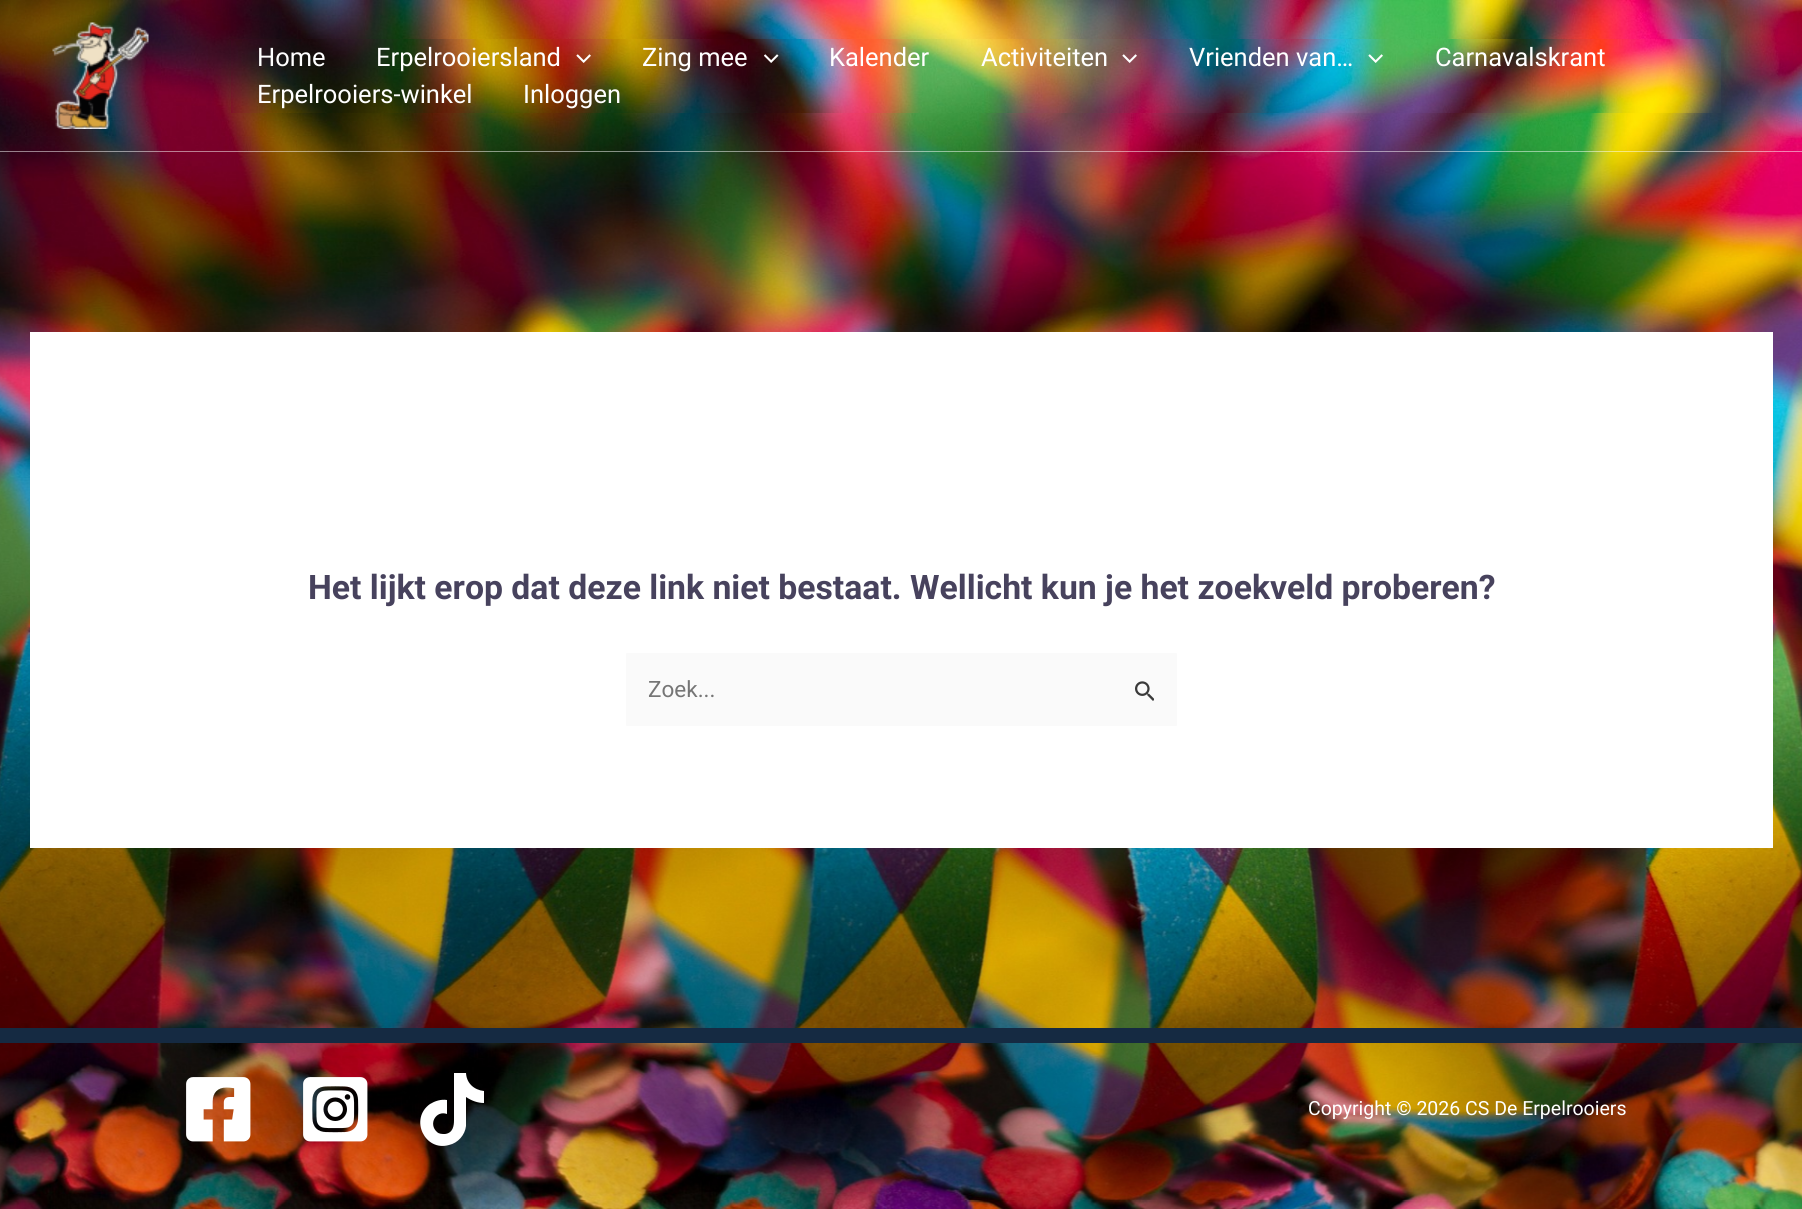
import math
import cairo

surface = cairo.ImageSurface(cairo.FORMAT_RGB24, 1802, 1209)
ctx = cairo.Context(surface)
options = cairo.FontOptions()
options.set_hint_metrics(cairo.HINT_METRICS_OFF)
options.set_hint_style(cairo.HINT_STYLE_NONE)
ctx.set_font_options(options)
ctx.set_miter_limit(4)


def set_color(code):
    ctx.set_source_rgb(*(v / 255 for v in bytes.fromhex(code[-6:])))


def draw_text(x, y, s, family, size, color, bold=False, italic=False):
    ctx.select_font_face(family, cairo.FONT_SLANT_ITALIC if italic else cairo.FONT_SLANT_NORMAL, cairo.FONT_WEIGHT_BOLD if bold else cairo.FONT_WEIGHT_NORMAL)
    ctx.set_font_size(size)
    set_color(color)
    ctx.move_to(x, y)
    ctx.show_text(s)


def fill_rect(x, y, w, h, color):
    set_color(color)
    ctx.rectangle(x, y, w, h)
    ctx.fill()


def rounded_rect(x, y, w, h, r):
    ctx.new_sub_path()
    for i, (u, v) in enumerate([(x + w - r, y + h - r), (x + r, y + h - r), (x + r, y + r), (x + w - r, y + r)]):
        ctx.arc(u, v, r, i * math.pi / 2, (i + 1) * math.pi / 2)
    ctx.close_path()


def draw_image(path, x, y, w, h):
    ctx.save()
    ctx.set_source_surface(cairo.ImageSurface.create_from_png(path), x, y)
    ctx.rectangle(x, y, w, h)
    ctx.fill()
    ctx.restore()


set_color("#ffffff")
ctx.paint()
draw_image("assets/img1.png", 0, 152, 1802, 1057)
draw_image("assets/img2.png", 0, 0, 1802, 152)
draw_image("assets/img3.png", 52, 22, 97, 107)
draw_image("assets/img4.png", 231, 39, 1490, 74)
draw_text(257, 66, "Home", "Roboto", 25.5, "#ffffff")
draw_text(376, 66, "Erpelrooiersland", "Roboto", 25.5, "#ffffff")
draw_image("assets/img5.png", 576, 54, 15, 9)
draw_text(642, 66, "Zing mee", "Roboto", 25.5, "#ffffff")
draw_image("assets/img6.png", 764, 54, 15, 9)
draw_text(829, 66, "Kalender", "Roboto", 25.5, "#ffffff")
draw_text(981, 66, "Activiteiten", "Roboto", 25.5, "#ffffff")
draw_image("assets/img7.png", 1122, 54, 15, 9)
draw_text(1189, 66, "Vrienden van…", "Roboto", 25.5, "#ffffff")
draw_image("assets/img8.png", 1368, 54, 15, 9)
draw_text(1435, 66, "Carnavalskrant", "Roboto", 25.5, "#ffffff")
draw_text(257, 103, "Erpelrooiers-winkel", "Roboto", 25.5, "#ffffff")
draw_text(523, 103, "Inloggen", "Roboto", 25.5, "#ffffff")
fill_rect(30, 332, 1743, 516, "#ffffff")
draw_text(308, 599, "Het lijkt erop dat deze link niet bestaat. Wellicht kun je het zoekveld proberen?", "Roboto", 33.75, "#47425d", bold=True)
set_color("#fafafa")
rounded_rect(625, 652, 553, 75, 2)
ctx.fill_preserve()
set_color("#ffffff")
ctx.stroke()
draw_text(648, 697, "Zoek...", "Roboto", 22.5, "#757575")
draw_image("assets/img9.png", 1135, 681, 19, 20)
fill_rect(0, 1028, 1802, 15, "#152a42")
draw_image("assets/img10.png", 186, 1077, 65, 65)
draw_image("assets/img11.png", 303, 1077, 65, 65)
ctx.save()
ctx.rectangle(416, 1073, 73, 73)
ctx.clip()
set_color("#ffffff")
ctx.new_path()
ctx.move_to(454, 1073)
ctx.line_to(466, 1072)
ctx.curve_to(466, 1083, 474, 1090, 484, 1091)
ctx.line_to(484, 1103)
ctx.curve_to(478, 1103, 472, 1101, 466, 1097)
ctx.line_to(466, 1126)
ctx.curve_to(465, 1135, 458, 1143, 449, 1145)
ctx.curve_to(425, 1152, 409, 1119, 430, 1104)
ctx.curve_to(435, 1101, 441, 1099, 447, 1100)
ctx.line_to(447, 1114)
ctx.curve_to(436, 1110, 428, 1124, 437, 1132)
ctx.curve_to(439, 1134, 442, 1134, 445, 1134)
ctx.curve_to(453, 1133, 454, 1126, 454, 1120)
ctx.close_path()
ctx.fill()
ctx.restore()
draw_text(1308, 1115, "Copyright © 2026 CS De Erpelrooiers", "Roboto", 19.5, "#ffffff")
surface.write_to_png("output.png")
